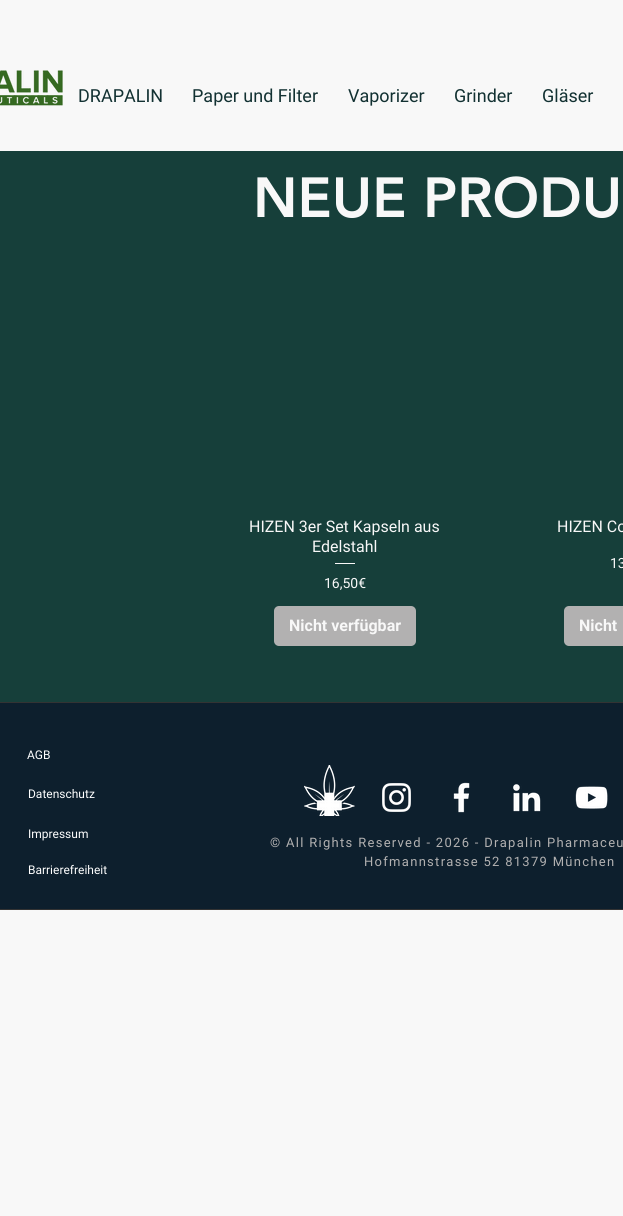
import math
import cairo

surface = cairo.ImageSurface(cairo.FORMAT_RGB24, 623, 1216)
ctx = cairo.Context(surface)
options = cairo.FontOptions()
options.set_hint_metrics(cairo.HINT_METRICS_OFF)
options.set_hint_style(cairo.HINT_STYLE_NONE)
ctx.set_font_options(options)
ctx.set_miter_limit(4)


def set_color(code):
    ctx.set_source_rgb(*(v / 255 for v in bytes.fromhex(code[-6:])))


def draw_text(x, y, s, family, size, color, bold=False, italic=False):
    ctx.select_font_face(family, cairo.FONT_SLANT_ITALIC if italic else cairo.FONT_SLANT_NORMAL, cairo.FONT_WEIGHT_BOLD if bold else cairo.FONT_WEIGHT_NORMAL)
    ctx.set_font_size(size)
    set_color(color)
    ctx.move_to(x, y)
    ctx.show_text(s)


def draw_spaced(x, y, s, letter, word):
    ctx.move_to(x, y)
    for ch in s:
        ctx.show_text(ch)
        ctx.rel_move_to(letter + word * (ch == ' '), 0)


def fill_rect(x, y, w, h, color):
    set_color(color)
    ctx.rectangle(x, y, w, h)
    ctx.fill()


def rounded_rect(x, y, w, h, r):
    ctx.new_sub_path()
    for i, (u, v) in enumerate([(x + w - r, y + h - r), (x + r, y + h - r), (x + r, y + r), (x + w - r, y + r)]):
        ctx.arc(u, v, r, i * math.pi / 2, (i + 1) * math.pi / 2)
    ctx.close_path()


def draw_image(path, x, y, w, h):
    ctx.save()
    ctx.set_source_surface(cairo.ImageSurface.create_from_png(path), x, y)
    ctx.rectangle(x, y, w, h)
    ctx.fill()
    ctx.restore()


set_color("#f8f8f8")
ctx.paint()
draw_image("assets/img1.png", 0, 70, 63, 36)
draw_text(78, 102, "DRAPALIN", "Roboto", 18, "#123132")
draw_text(192, 102, "Paper und Filter", "Roboto", 18, "#123132")
draw_text(348, 102, "Vaporizer", "Roboto", 18, "#123132")
draw_text(454, 102, "Grinder", "Roboto", 18, "#123132")
draw_text(542, 102, "Gläser", "Roboto", 18, "#123132")
fill_rect(0, 151, 623, 551, "#163f3a")
draw_text(253, 217, "NEUE PRODU", "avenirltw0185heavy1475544 Black", 56, "#f8f8f8")
draw_text(249, 532, "HIZEN 3er Set Kapseln aus", "Roboto", 16, "#f8f8f8")
draw_text(312, 552, "Edelstahl", "Roboto", 16, "#f8f8f8")
fill_rect(335, 563, 20, 1, "#f8f8f8")
draw_text(324, 588, "16,50€", "Roboto", 14, "#f8f8f8")
set_color("#b2b1b1")
rounded_rect(274, 606, 142, 40, 5)
ctx.fill()
draw_text(289, 631, "Nicht verfügbar", "Roboto", 16, "#f8f8f8", bold=True)
draw_text(557, 532, "HIZEN Co", "Roboto", 16, "#f8f8f8")
draw_text(610, 568, "13", "Roboto", 14, "#f8f8f8")
set_color("#b2b1b1")
rounded_rect(564, 606, 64, 40, 5)
ctx.fill()
draw_text(579, 631, "Nicht", "Roboto", 16, "#f8f8f8", bold=True)
fill_rect(0, 703, 623, 206, "#0d1f2d")
fill_rect(0, 702, 623, 1, "#333333")
fill_rect(0, 909, 623, 1, "#333333")
draw_text(27, 759, "AGB", "Roboto", 12, "#ffffff")
draw_text(28, 798, "Datenschutz", "Roboto", 12, "#ffffff")
draw_text(28, 838, "Impressum", "Roboto", 12, "#ffffff")
draw_image("assets/img2.png", 304, 765, 51, 51)
draw_image("assets/img3.png", 382, 783, 29, 29)
draw_image("assets/img4.png", 453, 782, 17, 31)
draw_image("assets/img5.png", 513, 784, 28, 28)
draw_image("assets/img6.png", 575, 786, 33, 23)
ctx.set_font_size(13)
set_color("#b2b1b1")
draw_spaced(270, 847, "© All Rights Reserved - 2026 - Drapalin Pharmaceu", 1.3, 0)
draw_spaced(364, 866, "Hofmannstrasse 52 81379 München", 1.3, 0)
draw_text(28, 874, "Barrierefreiheit", "Roboto", 12, "#ffffff")
surface.write_to_png("output.png")
